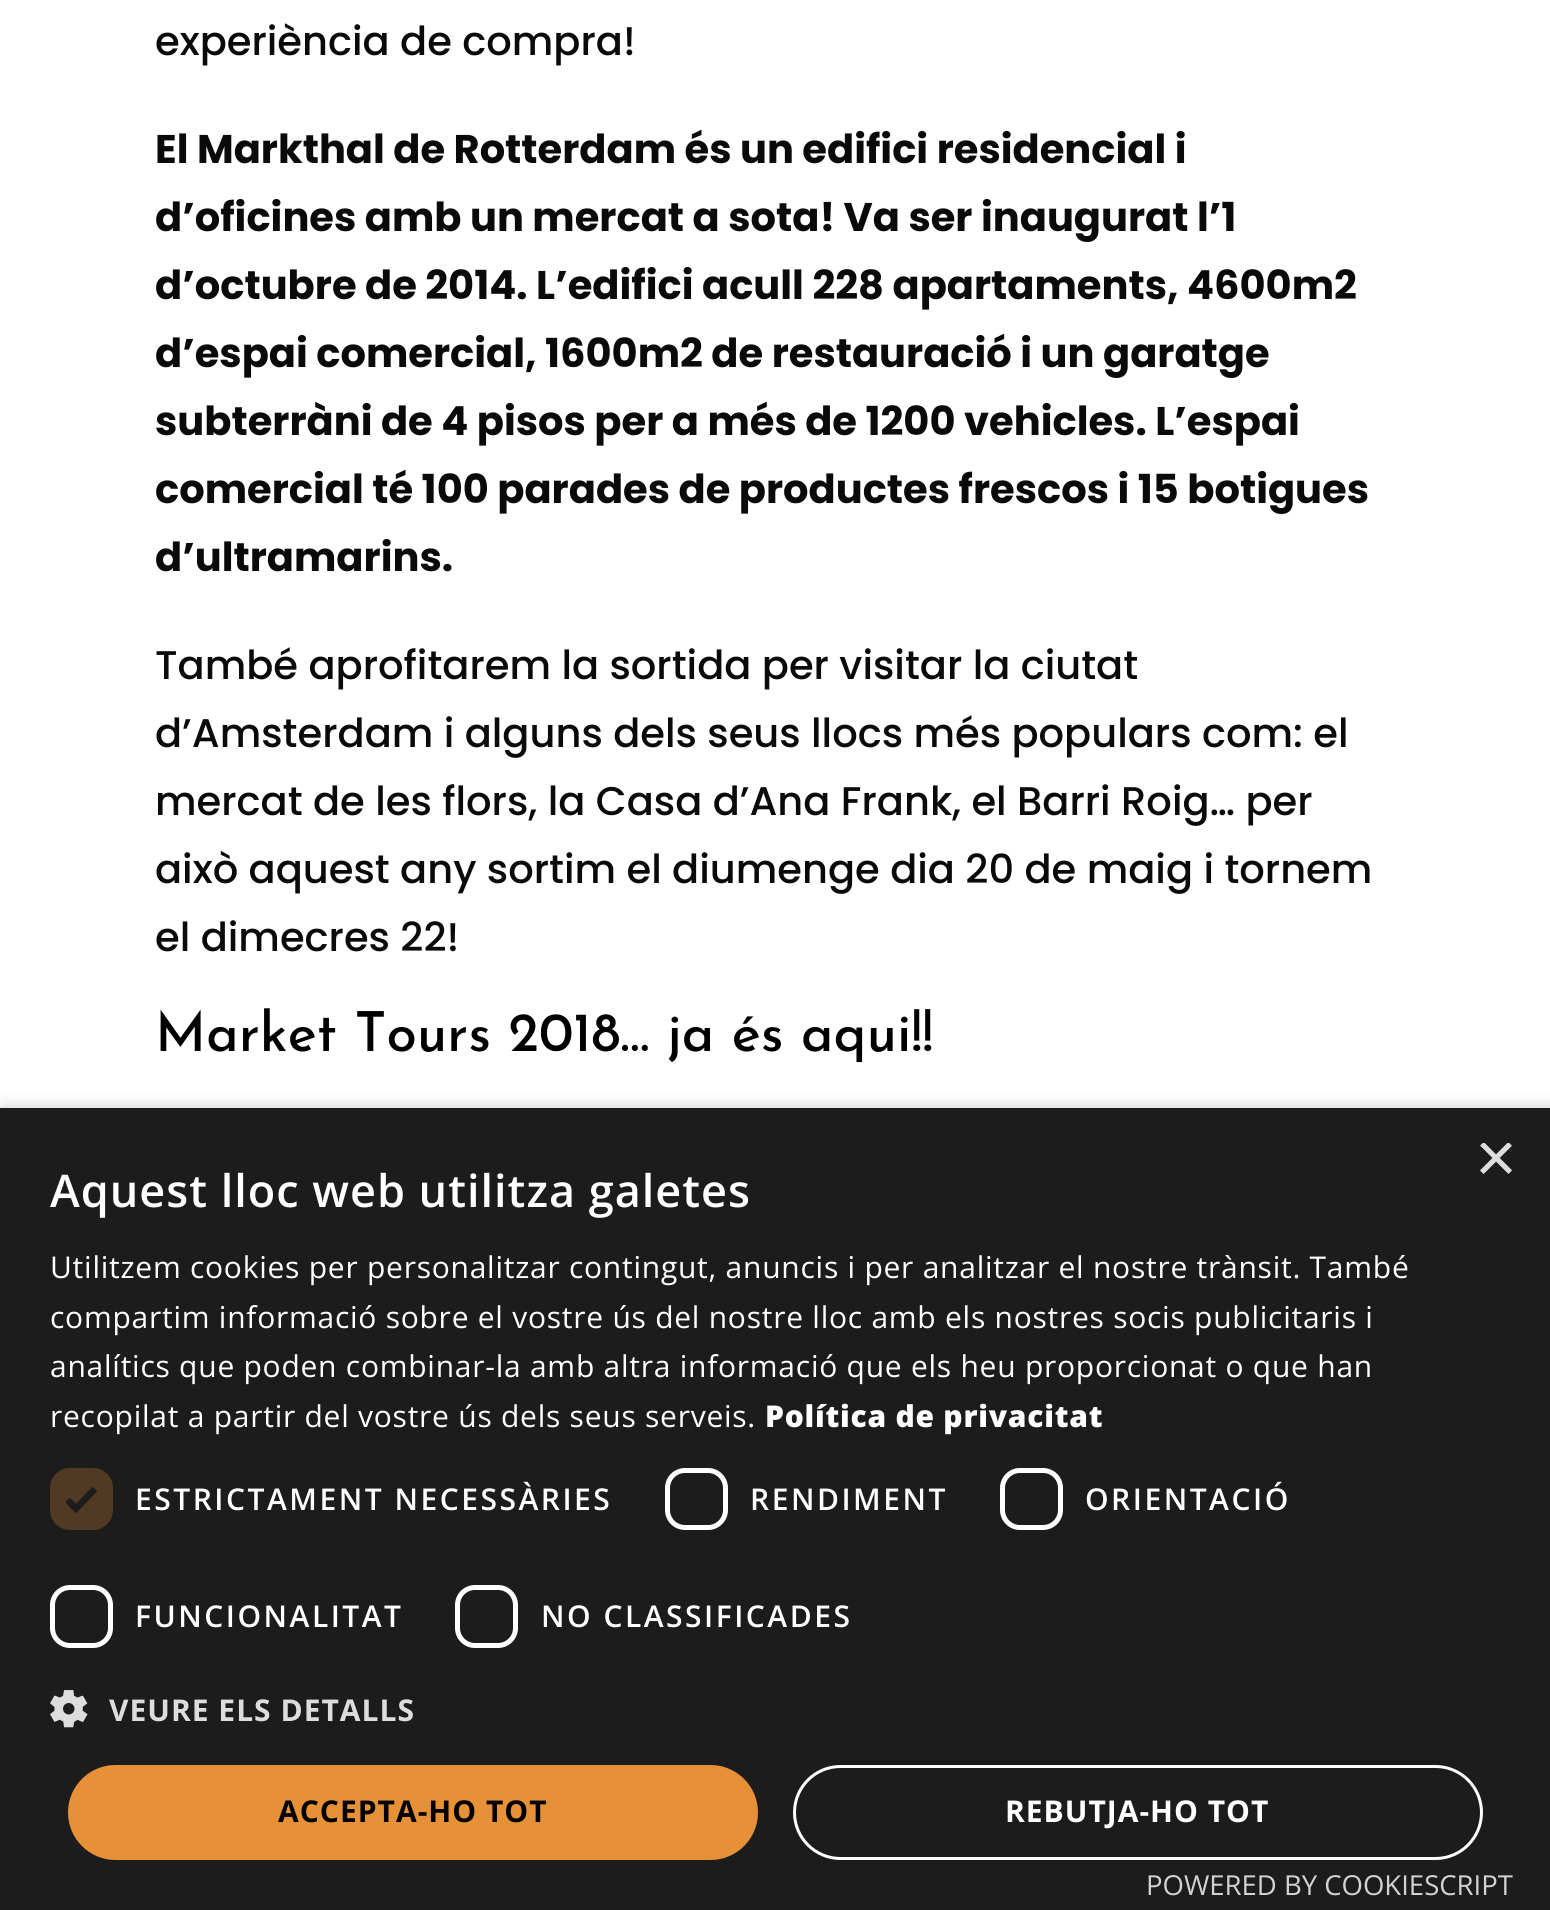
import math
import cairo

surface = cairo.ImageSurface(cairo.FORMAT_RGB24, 1550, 1910)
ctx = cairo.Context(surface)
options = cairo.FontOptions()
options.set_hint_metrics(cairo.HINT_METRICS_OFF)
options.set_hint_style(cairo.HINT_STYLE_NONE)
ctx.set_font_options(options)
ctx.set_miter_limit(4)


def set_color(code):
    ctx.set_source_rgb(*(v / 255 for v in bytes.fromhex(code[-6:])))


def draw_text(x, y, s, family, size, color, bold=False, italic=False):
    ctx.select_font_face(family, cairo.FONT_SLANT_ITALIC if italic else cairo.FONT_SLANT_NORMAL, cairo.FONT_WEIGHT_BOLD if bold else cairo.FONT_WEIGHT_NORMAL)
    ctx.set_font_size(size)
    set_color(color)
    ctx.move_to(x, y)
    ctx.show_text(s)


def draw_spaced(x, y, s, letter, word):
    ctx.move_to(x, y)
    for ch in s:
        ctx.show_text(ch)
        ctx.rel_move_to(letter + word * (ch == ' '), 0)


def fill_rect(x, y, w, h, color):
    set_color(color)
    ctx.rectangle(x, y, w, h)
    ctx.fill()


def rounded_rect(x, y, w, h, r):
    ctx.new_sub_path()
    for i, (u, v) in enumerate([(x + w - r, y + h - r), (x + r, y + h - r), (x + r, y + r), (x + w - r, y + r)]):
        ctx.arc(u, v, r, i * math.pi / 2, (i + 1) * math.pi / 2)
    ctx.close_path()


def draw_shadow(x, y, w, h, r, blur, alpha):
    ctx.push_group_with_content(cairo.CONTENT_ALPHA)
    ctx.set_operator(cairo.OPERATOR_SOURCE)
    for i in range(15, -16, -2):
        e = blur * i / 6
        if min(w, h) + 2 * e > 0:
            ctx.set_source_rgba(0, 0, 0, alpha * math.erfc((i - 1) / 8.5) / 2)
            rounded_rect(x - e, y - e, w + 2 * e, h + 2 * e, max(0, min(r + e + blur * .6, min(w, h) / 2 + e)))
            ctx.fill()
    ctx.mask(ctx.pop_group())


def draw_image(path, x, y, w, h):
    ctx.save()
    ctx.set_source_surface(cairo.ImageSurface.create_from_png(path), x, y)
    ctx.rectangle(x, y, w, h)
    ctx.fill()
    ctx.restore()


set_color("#ffffff")
ctx.paint()
draw_text(155, 55, "experiència de compra!", "Poppins Medium", 40, "#0a0a0a")
draw_text(155, 163, "El Markthal de Rotterdam és un edifici residencial i", "Poppins", 40, "#0a0a0a", bold=True)
draw_text(155, 231, "d’oficines amb un mercat a sota! Va ser inaugurat l’1", "Poppins", 40, "#0a0a0a", bold=True)
draw_text(155, 299, "d’octubre de 2014. L’edifici acull 228 apartaments, 4600m2", "Poppins", 40, "#0a0a0a", bold=True)
draw_text(155, 367, "d’espai comercial, 1600m2 de restauració i un garatge", "Poppins", 40, "#0a0a0a", bold=True)
draw_text(155, 435, "subterràni de 4 pisos per a més de 1200 vehicles. L’espai", "Poppins", 40, "#0a0a0a", bold=True)
draw_text(155, 503, "comercial té 100 parades de productes frescos i 15 botigues", "Poppins", 40, "#0a0a0a", bold=True)
draw_text(155, 571, "d’ultramarins.", "Poppins", 40, "#0a0a0a", bold=True)
draw_text(155, 679, "També aprofitarem la sortida per visitar la ciutat", "Poppins Medium", 40, "#0a0a0a")
draw_text(155, 747, "d’Amsterdam i alguns dels seus llocs més populars com: el", "Poppins Medium", 40, "#0a0a0a")
draw_text(155, 815, "mercat de les flors, la Casa d’Ana Frank, el Barri Roig… per", "Poppins Medium", 40, "#0a0a0a")
draw_text(155, 883, "això aquest any sortim el diumenge dia 20 de maig i tornem", "Poppins Medium", 40, "#0a0a0a")
draw_text(155, 951, "el dimecres 22!", "Poppins Medium", 40, "#0a0a0a")
draw_text(155, 1051, "Market Tours 2018… ja és aqui!!", "Josefin Sans Medium", 55, "#000000")
set_color("#000000")
draw_shadow(3, 1113, 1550, 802, 0, 10, 0.35)
fill_rect(0, 1108, 1550, 802, "#1c1c1c")
ctx.save()
ctx.rectangle(1475, 1143, 38, 37)
ctx.clip()
draw_text(1475, 1182, "×", "Liberation Sans", 72, "#dddddd")
ctx.restore()
ctx.select_font_face("Open Sans SemiBold")
ctx.set_font_size(45)
set_color("#ffffff")
draw_spaced(50, 1207, "Aquest lloc web utilitza galetes", 1, 0)
ctx.select_font_face("Open Sans")
ctx.set_font_size(30)
draw_spaced(50, 1278, "Utilitzem cookies per personalitzar contingut, anuncis i per analitzar el nostre trànsit. També", 0.75, 0)
draw_spaced(50, 1328, "compartim informació sobre el vostre ús del nostre lloc amb els nostres socis publicitaris i", 0.75, 0)
draw_spaced(50, 1377, "analítics que poden combinar-la amb altra informació que els heu proporcionat o que han", 0.75, 0)
draw_spaced(50, 1427, "recopilat a partir del vostre ús dels seus serveis.", 0.75, 0)
ctx.select_font_face("Open Sans ExtraBold")
draw_spaced(765, 1427, "Política de privacitat", 0.75, 0)
set_color("#513a23")
rounded_rect(50, 1468, 63, 62, 20)
ctx.fill()
ctx.new_path()
ctx.move_to(67.5, 1500)
ctx.line_to(76, 1508.5)
ctx.line_to(95, 1489)
set_color("#1c1c1c")
ctx.set_line_width(6.6)
ctx.stroke()
ctx.select_font_face("Open Sans SemiBold")
set_color("#ffffff")
draw_spaced(135, 1510, "ESTRICTAMENT NECESSÀRIES", 2.5, 0)
rounded_rect(667.5, 1470.5, 58, 57, 17.5)
ctx.set_line_width(5)
ctx.stroke()
draw_spaced(750, 1510, "RENDIMENT", 2.5, 0)
rounded_rect(1002.5, 1470.5, 58, 57, 17.5)
ctx.stroke()
draw_spaced(1085, 1510, "ORIENTACIÓ", 2.5, 0)
rounded_rect(52.5, 1587.5, 58, 58, 17.5)
ctx.stroke()
draw_spaced(135, 1627, "FUNCIONALITAT", 2.5, 0)
rounded_rect(457.5, 1587.5, 58, 58, 17.5)
ctx.stroke()
draw_spaced(541, 1627, "NO CLASSIFICADES", 2.5, 0)
draw_image("assets/img1.png", 50, 1690, 38, 38)
ctx.select_font_face("Open Sans", cairo.FONT_SLANT_NORMAL, cairo.FONT_WEIGHT_BOLD)
set_color("#dddddd")
draw_spaced(109, 1721, "VEURE ELS DETALLS", 1, 0)
set_color("#e69138")
rounded_rect(68, 1765, 690, 95, 47.5)
ctx.fill()
set_color("#000000")
draw_spaced(278, 1822, "ACCEPTA-HO TOT", 1, 0)
rounded_rect(794.5, 1766.5, 687, 92, 46)
set_color("#ffffff")
ctx.set_line_width(3)
ctx.stroke()
draw_spaced(1005, 1822, "REBUTJA-HO TOT", 1, 0)
draw_text(1146, 1895, "POWERED BY COOKIESCRIPT", "Open Sans", 27.5, "#d2d2d2")
surface.write_to_png("output.png")
